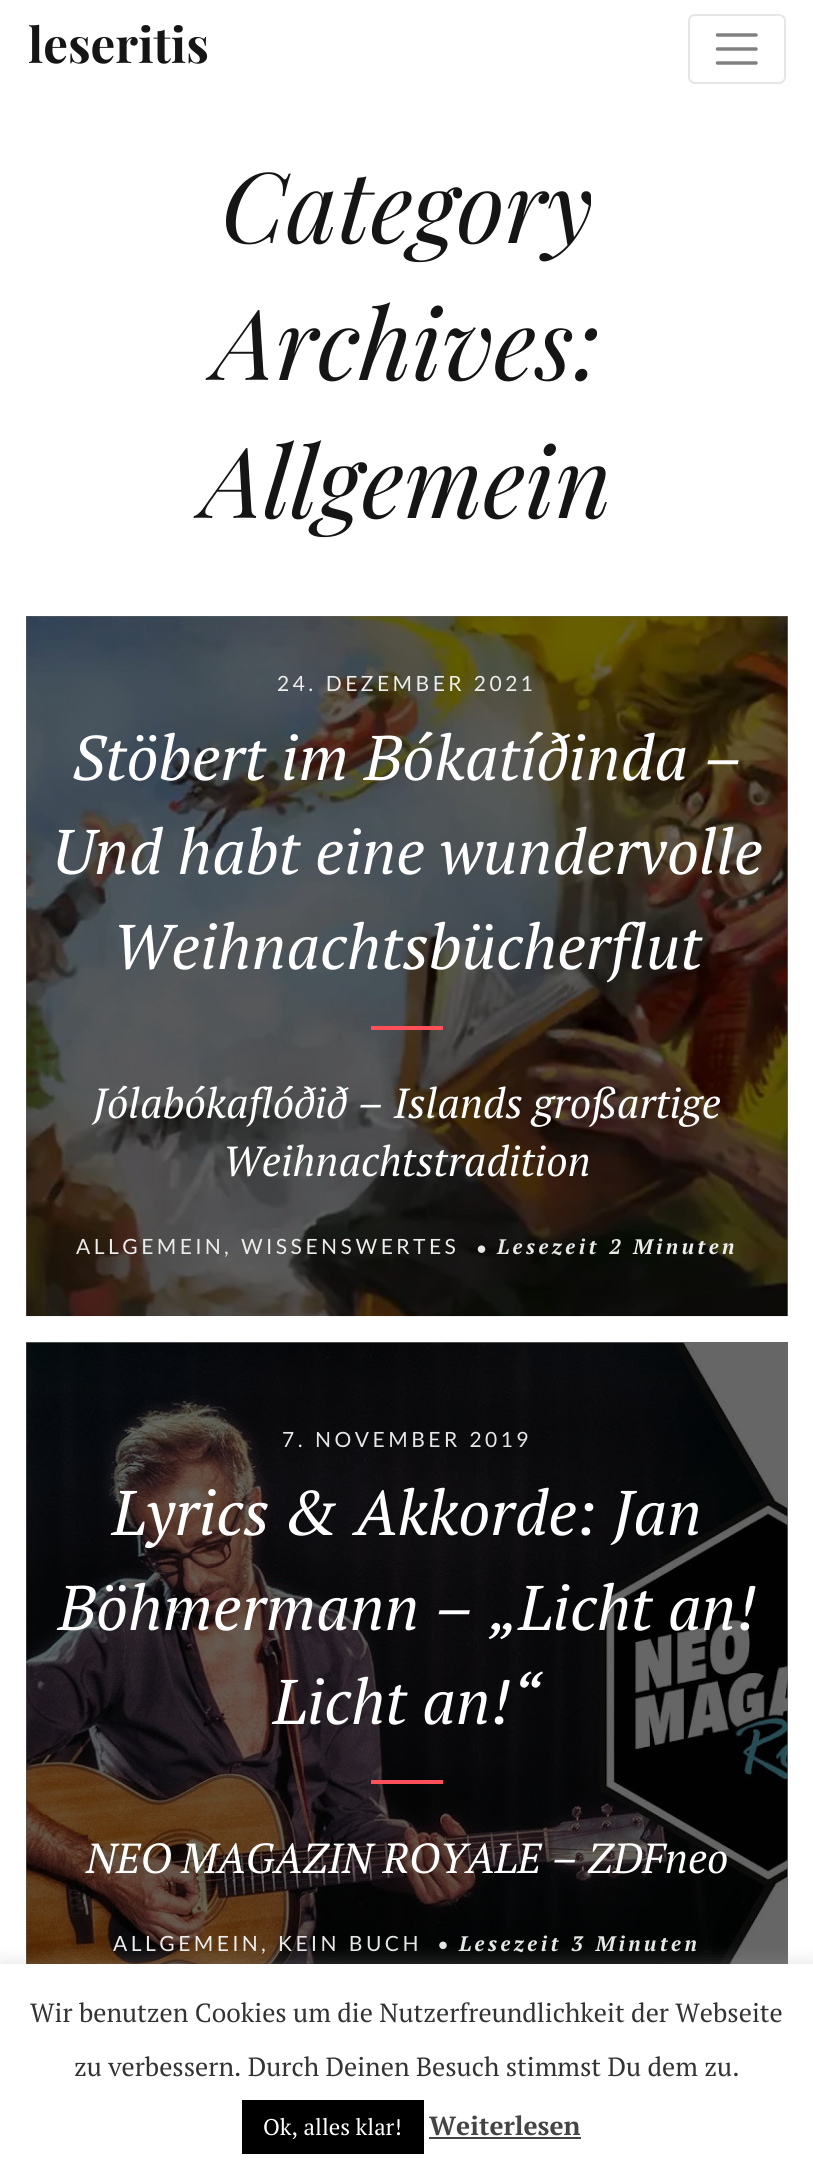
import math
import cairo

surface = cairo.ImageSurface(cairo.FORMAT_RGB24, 813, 2174)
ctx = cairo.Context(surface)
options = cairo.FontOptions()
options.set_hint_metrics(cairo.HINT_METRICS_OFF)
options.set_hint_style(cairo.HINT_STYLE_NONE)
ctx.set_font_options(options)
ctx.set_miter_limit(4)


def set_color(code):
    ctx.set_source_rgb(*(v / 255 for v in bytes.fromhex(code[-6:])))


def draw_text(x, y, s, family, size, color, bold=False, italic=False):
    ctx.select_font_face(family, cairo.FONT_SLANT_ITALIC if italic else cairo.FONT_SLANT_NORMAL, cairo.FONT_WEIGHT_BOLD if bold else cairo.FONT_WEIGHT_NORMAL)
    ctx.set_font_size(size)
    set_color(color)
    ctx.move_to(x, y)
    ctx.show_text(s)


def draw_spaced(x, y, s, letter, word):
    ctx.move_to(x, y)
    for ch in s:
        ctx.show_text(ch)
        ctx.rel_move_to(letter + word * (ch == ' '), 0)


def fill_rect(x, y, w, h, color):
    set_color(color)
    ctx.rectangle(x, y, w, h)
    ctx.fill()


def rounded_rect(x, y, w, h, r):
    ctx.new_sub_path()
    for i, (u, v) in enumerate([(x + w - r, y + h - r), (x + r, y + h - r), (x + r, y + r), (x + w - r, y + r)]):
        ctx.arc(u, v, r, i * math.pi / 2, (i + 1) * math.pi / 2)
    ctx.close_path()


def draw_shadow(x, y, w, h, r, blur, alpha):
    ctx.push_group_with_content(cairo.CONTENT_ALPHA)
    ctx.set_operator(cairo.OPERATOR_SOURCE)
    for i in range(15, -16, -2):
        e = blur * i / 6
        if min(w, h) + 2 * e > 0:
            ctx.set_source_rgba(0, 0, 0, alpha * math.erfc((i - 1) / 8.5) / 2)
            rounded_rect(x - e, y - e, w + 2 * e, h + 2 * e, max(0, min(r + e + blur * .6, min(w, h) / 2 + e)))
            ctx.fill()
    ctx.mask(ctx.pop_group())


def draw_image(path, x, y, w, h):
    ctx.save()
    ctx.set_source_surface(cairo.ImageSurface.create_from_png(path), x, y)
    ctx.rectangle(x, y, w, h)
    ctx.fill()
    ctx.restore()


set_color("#ffffff")
ctx.paint()
fill_rect(26, 1342, 762, 622, "#666666")
fill_rect(26, 616, 762, 700, "#666666")
draw_text(28, 63, "leseritis", "Playfair Display", 49, "#151515", bold=True)
rounded_rect(689, 15, 96, 68, 6)
set_color("#e6e6e6")
ctx.stroke()
ctx.new_path()
ctx.move_to(717.5, 35)
ctx.line_to(756, 35)
ctx.move_to(717.5, 49)
ctx.line_to(756, 49)
ctx.move_to(717.5, 63)
ctx.line_to(756, 63)
set_color("#808080")
ctx.set_line_width(3.5)
ctx.set_line_cap(cairo.LINE_CAP_ROUND)
ctx.stroke()
draw_text(221, 243, "Category", "Playfair Display", 98, "#151515", italic=True)
draw_text(214, 380, "Archives:", "Playfair Display", 98, "#151515", italic=True)
draw_text(202, 518, "Allgemein", "Playfair Display", 98, "#151515", italic=True)
draw_image("assets/img1.png", 26, 616, 762, 701)
ctx.select_font_face("Lato")
ctx.set_font_size(21)
set_color("#ededeb")
draw_spaced(277, 691, "24. DEZEMBER 2021", 3.5, 0)
draw_text(72, 780, "Stöbert im Bókatíðinda –", "PT Serif", 63, "#ffffff", italic=True)
draw_text(52, 874, "Und habt eine wundervolle", "PT Serif", 63, "#ffffff", italic=True)
draw_text(113, 969, "Weihnachtsbücherflut", "PT Serif", 63, "#ffffff", italic=True)
fill_rect(371, 1026, 72, 4, "#ff4f58")
draw_text(93, 1118, "Jólabókaflóðið – Islands großartige", "PT Serif", 42, "#ffffff", italic=True)
draw_text(223, 1176, "Weihnachtstradition", "PT Serif", 42, "#ffffff", italic=True)
ctx.select_font_face("Lato")
ctx.set_font_size(21)
set_color("#ededeb")
draw_spaced(76, 1254, "ALLGEMEIN", 3.5, 0)
draw_spaced(224, 1254, ",", 3.5, 0)
draw_spaced(241, 1254, "WISSENSWERTES", 3.5, 0)
draw_image("assets/img2.png", 477, 1245, 9, 8)
ctx.select_font_face("PT Serif", cairo.FONT_SLANT_ITALIC, cairo.FONT_WEIGHT_BOLD)
set_color("#e7e7e7")
draw_spaced(497, 1254, "Lesezeit", 3.5, 0)
draw_spaced(609, 1254, "2", 3.5, 0)
set_color("#ededeb")
draw_spaced(633, 1254, "Minuten", 3.5, 0)
draw_image("assets/img3.png", 26, 1342, 762, 622)
ctx.select_font_face("Lato")
set_color("#e7e7e7")
draw_spaced(282, 1447, "7. NOVEMBER 2019", 3.5, 0)
draw_text(112, 1535, "Lyrics & Akkorde: Jan", "PT Serif", 63, "#ffffff", italic=True)
draw_text(58, 1630, "Böhmermann – „Licht an!", "PT Serif", 63, "#ffffff", italic=True)
draw_text(273, 1724, "Licht an!“", "PT Serif", 63, "#ffffff", italic=True)
fill_rect(371, 1780, 72, 4, "#ff4f58")
draw_text(86, 1873, "NEO MAGAZIN ROYALE – ZDFneo", "PT Serif", 42, "#ffffff", italic=True)
ctx.select_font_face("Lato")
ctx.set_font_size(21)
set_color("#ededeb")
draw_spaced(113, 1951, "ALLGEMEIN", 3.5, 0)
draw_spaced(261, 1951, ",", 3.5, 0)
set_color("#e7e7e7")
draw_spaced(278, 1951, "KEIN BUCH", 3.5, 0)
draw_image("assets/img4.png", 439, 1941, 8, 9)
ctx.select_font_face("PT Serif", cairo.FONT_SLANT_ITALIC, cairo.FONT_WEIGHT_BOLD)
draw_spaced(459, 1951, "Lesezeit 3 Minuten", 3.5, 0)
set_color("#acabab")
draw_shadow(0, 1962, 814, 212, 0, 9, 0.3)
fill_rect(0, 1964, 813, 210, "#ffffff")
draw_text(30, 2022, "Wir benutzen Cookies um die Nutzerfreundlichkeit der Webseite", "PT Serif", 26.25, "#333333")
draw_text(74, 2076, "zu verbessern. Durch Deinen Besuch stimmst Du dem zu.", "PT Serif", 26.25, "#333333")
fill_rect(242, 2100, 182, 54, "#000000")
draw_text(263, 2135, "Ok, alles klar!", "PT Serif", 22.75, "#ffffff")
draw_text(429, 2135, "Weiterlesen", "PT Serif", 26.25, "#444444", bold=True)
fill_rect(429, 2137, 152, 2, "#444444")
surface.write_to_png("output.png")
